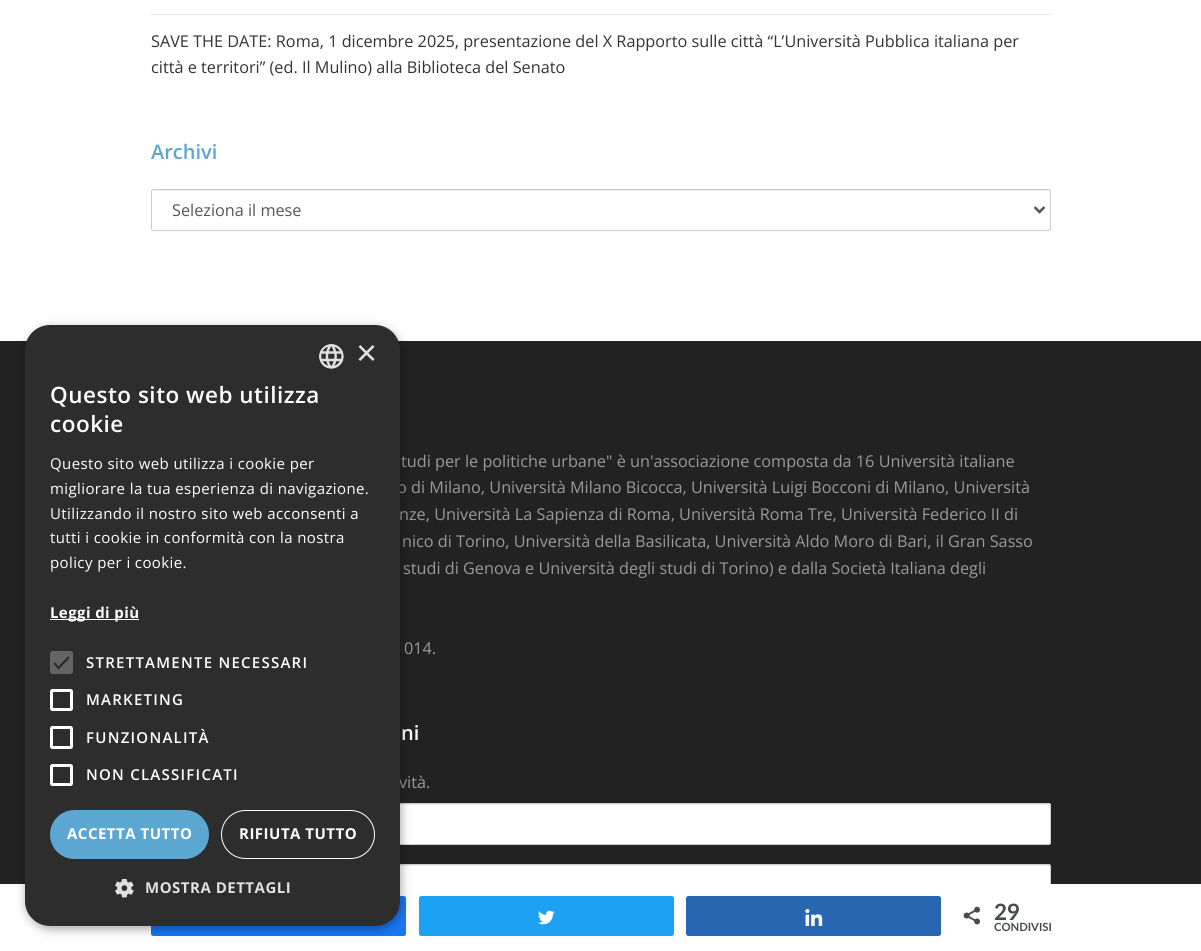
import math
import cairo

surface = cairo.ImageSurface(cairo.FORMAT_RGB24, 1201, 951)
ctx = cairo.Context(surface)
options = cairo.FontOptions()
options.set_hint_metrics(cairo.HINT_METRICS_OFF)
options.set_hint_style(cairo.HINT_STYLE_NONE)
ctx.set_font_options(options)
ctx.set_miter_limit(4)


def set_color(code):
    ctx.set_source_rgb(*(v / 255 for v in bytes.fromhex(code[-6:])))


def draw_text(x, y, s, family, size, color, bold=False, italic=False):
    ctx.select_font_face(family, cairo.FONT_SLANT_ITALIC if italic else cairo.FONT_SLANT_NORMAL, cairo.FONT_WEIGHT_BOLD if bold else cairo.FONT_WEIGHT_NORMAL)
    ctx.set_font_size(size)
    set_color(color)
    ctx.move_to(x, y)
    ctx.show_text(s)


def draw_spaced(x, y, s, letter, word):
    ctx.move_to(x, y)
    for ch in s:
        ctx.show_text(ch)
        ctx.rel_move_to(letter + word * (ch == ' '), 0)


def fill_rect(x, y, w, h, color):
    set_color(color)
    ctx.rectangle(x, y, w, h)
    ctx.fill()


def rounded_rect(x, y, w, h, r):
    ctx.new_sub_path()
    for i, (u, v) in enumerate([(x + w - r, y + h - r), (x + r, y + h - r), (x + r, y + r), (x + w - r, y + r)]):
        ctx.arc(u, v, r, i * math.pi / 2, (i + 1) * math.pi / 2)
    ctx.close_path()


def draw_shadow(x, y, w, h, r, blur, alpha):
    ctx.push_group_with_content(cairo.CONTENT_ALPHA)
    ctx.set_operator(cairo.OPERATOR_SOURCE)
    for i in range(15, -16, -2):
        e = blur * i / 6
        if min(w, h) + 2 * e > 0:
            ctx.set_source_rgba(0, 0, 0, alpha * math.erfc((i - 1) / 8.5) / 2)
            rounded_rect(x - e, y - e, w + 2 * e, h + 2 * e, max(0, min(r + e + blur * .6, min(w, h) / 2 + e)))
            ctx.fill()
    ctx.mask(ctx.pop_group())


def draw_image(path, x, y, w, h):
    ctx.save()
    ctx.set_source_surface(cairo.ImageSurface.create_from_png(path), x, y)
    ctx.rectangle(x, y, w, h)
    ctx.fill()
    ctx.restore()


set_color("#ffffff")
ctx.paint()
fill_rect(151, 14, 900, 1, "#e8e8e8")
draw_text(151, 47, "SAVE THE DATE: Roma, 1 dicembre 2025, presentazione del X Rapporto sulle città “L’Università Pubblica italiana per", "Open Sans", 16.25, "#333333")
draw_text(151, 73, "città e territori” (ed. Il Mulino) alla Biblioteca del Senato", "Open Sans", 16.25, "#333333")
draw_text(151, 159, "Archivi", "Open Sans SemiBold", 20, "#5ba7d1")
set_color("#ececec")
ctx.new_path()
ctx.move_to(154, 191)
ctx.line_to(1049, 191)
ctx.line_to(1050, 192)
ctx.line_to(1050, 191)
ctx.line_to(1049, 190)
ctx.line_to(154, 190)
ctx.line_to(153, 191)
ctx.close_path()
ctx.fill()
rounded_rect(151.5, 189.5, 899, 41, 2)
set_color("#cccccc")
ctx.set_line_width(1)
ctx.stroke()
ctx.new_path()
ctx.move_to(1034.5, 207)
ctx.line_to(1039.5, 212)
ctx.line_to(1044.5, 207)
set_color("#555555")
ctx.set_line_width(2.5)
ctx.stroke()
ctx.save()
ctx.rectangle(173, 198, 842, 25)
ctx.clip()
draw_text(172, 216, "Seleziona il mese", "Open Sans", 16.25, "#555555")
ctx.restore()
fill_rect(0, 341, 1201, 543, "#222222")
draw_text(401, 467, "tudi per le politiche urbane\" è un'associazione composta da 16 Università italiane", "Open Sans", 16.25, "#999999")
draw_text(397, 493, "o di Milano, Università Milano Bicocca, Università Luigi Bocconi di Milano, Università", "Open Sans", 16.25, "#999999")
draw_text(399, 520, "nze, Università La Sapienza di Roma, Università Roma Tre, Università Federico II di", "Open Sans", 16.25, "#999999")
draw_text(402, 547, "nico di Torino, Università della Basilicata, Università Aldo Moro di Bari, il Gran Sasso", "Open Sans", 16.25, "#999999")
draw_text(403, 574, "studi di Genova e Università degli studi di Torino) e dalla Società Italiana degli", "Open Sans", 16.25, "#999999")
draw_text(404, 654, "014.", "Open Sans", 16.25, "#999999")
draw_text(401, 740, "ni", "Open Sans SemiBold", 20, "#ffffff")
draw_text(399, 788, "vità.", "Open Sans", 16.25, "#999999")
set_color("#ffffff")
rounded_rect(151, 803, 900, 42, 2.5)
ctx.fill()
set_color("#ececec")
ctx.new_path()
ctx.move_to(154, 805)
ctx.line_to(1049, 805)
ctx.line_to(1050, 806)
ctx.line_to(1050, 805)
ctx.line_to(1049, 804)
ctx.line_to(154, 804)
ctx.line_to(153, 805)
ctx.close_path()
ctx.fill()
rounded_rect(151.5, 803.5, 899, 41, 2)
set_color("#cccccc")
ctx.set_line_width(1)
ctx.stroke()
set_color("#ffffff")
rounded_rect(151, 864, 900, 42, 2.5)
ctx.fill()
set_color("#ececec")
ctx.new_path()
ctx.move_to(154, 866)
ctx.line_to(1049, 866)
ctx.line_to(1050, 868)
ctx.line_to(1050, 865)
ctx.line_to(154, 865)
ctx.line_to(153, 866)
ctx.close_path()
ctx.fill()
rounded_rect(151.5, 864.5, 899, 41, 2)
set_color("#cccccc")
ctx.stroke()
fill_rect(151, 884, 900, 22, "#ffffff")
set_color("#1877f2")
rounded_rect(151.5, 896.5, 254, 39, 2)
ctx.fill_preserve()
ctx.stroke()
set_color("#000000")
draw_shadow(26, 328, 375, 601, 25, 5, 0.35)
set_color("#2d2d2d")
rounded_rect(25, 325, 375, 601, 25)
ctx.fill()
draw_image("assets/img1.png", 319, 344, 25, 25)
draw_text(356, 365, "×", "Liberation Sans", 36, "#e0e0e0")
ctx.select_font_face("Open Sans SemiBold")
ctx.set_font_size(22.5)
set_color("#ffffff")
draw_spaced(50, 403, "Questo sito web utilizza", 0.5, 0)
draw_spaced(50, 432, "cookie", 0.5, 0)
ctx.select_font_face("Open Sans")
ctx.set_font_size(15)
draw_spaced(50, 469, "Questo sito web utilizza i cookie per", 0.4, 0)
draw_spaced(50, 494, "migliorare la tua esperienza di navigazione.", 0.4, 0)
draw_spaced(50, 519, "Utilizzando il nostro sito web acconsenti a", 0.4, 0)
draw_spaced(50, 543, "tutti i cookie in conformità con la nostra", 0.4, 0)
draw_spaced(50, 568, "policy per i cookie.", 0.4, 0)
fill_rect(50, 619, 89, 1, "#ffffff")
ctx.select_font_face("Open Sans", cairo.FONT_SLANT_NORMAL, cairo.FONT_WEIGHT_BOLD)
draw_spaced(50, 618, "Leggi di più", 0.4, 0)
set_color("#646464")
rounded_rect(50, 651, 23, 23, 2.5)
ctx.fill()
ctx.new_path()
ctx.move_to(54, 663)
ctx.line_to(58.5, 668)
ctx.line_to(69, 657)
set_color("#2d2d2d")
ctx.set_line_width(2.3)
ctx.stroke()
ctx.select_font_face("Open Sans SemiBold")
set_color("#ffffff")
draw_spaced(86, 668, "STRETTAMENTE NECESSARI", 1.25, 0)
rounded_rect(51.5, 690.5, 20, 19, 1)
ctx.set_line_width(3)
ctx.stroke()
draw_spaced(86, 705, "MARKETING", 1.25, 0)
rounded_rect(51.5, 727.5, 20, 20, 1)
ctx.stroke()
draw_spaced(86, 743, "FUNZIONALITÀ", 1.25, 0)
rounded_rect(51.5, 765.5, 20, 19, 1)
ctx.stroke()
draw_spaced(86, 780, "NON CLASSIFICATI", 1.25, 0)
set_color("#5ba7d1")
rounded_rect(50, 810, 159, 49, 24.5)
ctx.fill()
ctx.select_font_face("Open Sans", cairo.FONT_SLANT_NORMAL, cairo.FONT_WEIGHT_BOLD)
set_color("#ffffff")
draw_spaced(67, 839, "ACCETTA TUTTO", 0.5, 0)
rounded_rect(221.5, 810.5, 153, 48, 24)
ctx.set_line_width(1)
ctx.stroke()
draw_spaced(239, 839, "RIFIUTA TUTTO", 0.5, 0)
draw_image("assets/img2.png", 115, 879, 19, 19)
set_color("#e0e0e0")
draw_spaced(145, 893, "MOSTRA DETTAGLI", 0.5, 0)
set_color("#1da1f2")
rounded_rect(419.5, 896.5, 254, 39, 2)
ctx.fill_preserve()
ctx.stroke()
draw_image("assets/img3.png", 538, 910, 17, 15)
set_color("#2767b1")
rounded_rect(686.5, 896.5, 254, 39, 2)
ctx.fill_preserve()
ctx.stroke()
draw_image("assets/img4.png", 805, 909, 18, 17)
draw_image("assets/img5.png", 963, 906, 17, 19)
draw_text(994, 920, "29", "Lato", 22.5, "#474b4d", bold=True)
ctx.save()
ctx.rectangle(151, 896, 900, 43)
ctx.clip()
draw_text(994, 931, "CONDIVISI", "Lato", 11.25, "#474b4d", bold=True)
ctx.restore()
surface.write_to_png("output.png")
